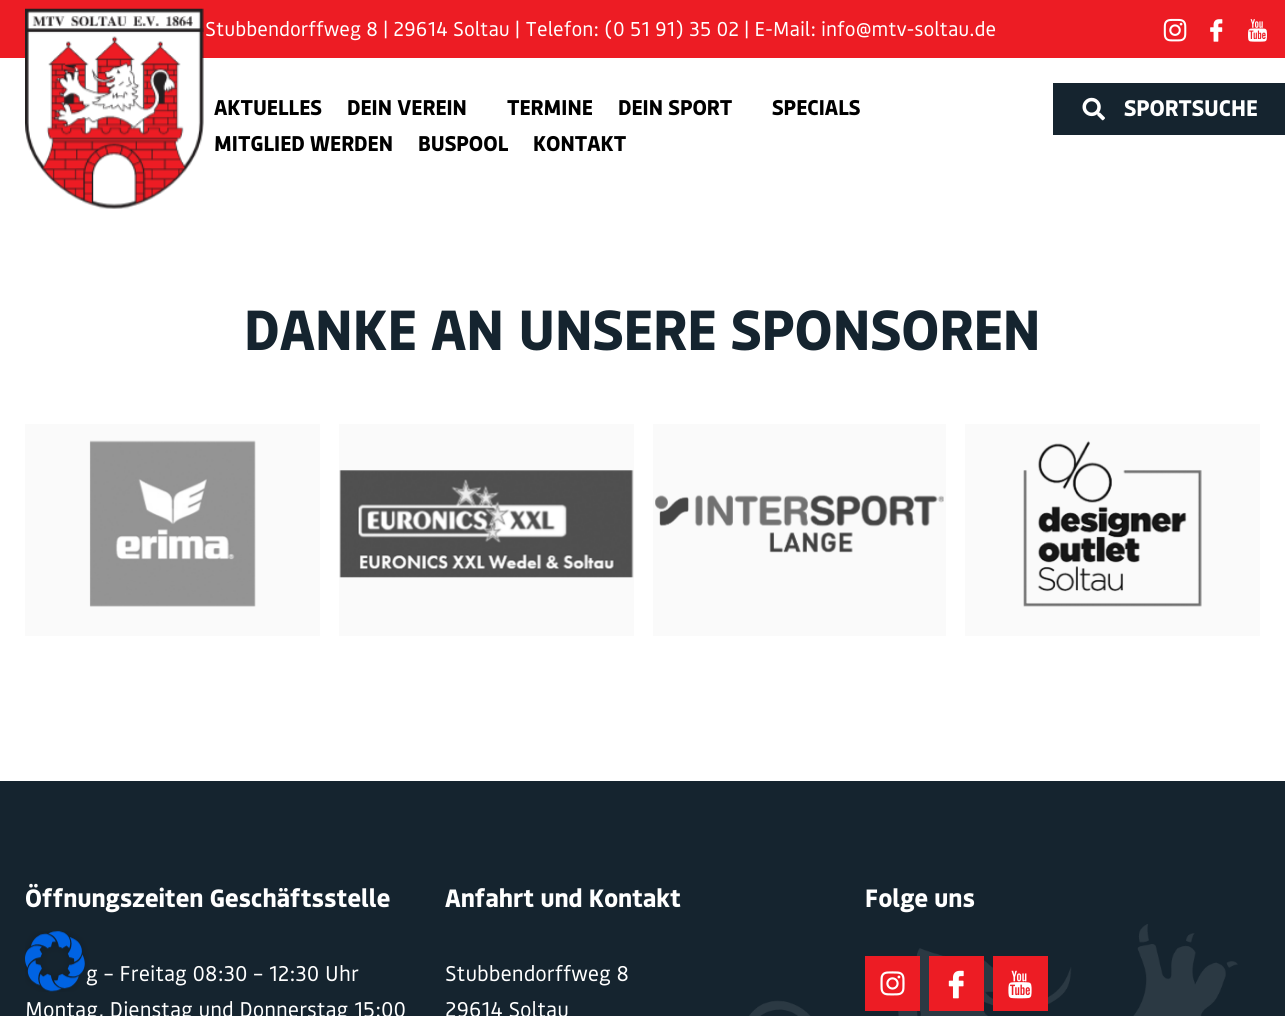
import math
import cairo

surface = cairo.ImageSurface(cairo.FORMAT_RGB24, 1285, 1016)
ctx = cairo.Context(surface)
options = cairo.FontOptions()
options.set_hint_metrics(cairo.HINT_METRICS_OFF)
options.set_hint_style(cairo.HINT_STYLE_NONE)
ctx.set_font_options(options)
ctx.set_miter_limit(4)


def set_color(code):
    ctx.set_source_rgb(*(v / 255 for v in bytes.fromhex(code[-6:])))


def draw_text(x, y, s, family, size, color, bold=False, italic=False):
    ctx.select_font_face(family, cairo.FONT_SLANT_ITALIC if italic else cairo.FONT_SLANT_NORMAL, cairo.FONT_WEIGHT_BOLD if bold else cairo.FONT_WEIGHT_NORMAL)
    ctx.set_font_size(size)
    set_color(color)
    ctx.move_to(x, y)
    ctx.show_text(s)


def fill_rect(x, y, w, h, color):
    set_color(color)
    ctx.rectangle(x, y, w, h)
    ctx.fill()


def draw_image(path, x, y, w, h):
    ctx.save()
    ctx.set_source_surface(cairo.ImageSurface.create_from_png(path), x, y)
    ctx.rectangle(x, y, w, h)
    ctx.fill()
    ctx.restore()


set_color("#ffffff")
ctx.paint()
fill_rect(0, 0, 1285, 58, "#ed1c24")
draw_text(205, 36, "Stubbendorffweg 8 | 29614 Soltau | Telefon: (0 51 91) 35 02 | E-Mail: info@mtv-soltau.de", "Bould", 20, "#ffffff")
draw_image("assets/img1.png", 1163, 18, 24, 24)
draw_image("assets/img2.png", 1210, 19, 13, 23)
draw_image("assets/img3.png", 1248, 19, 19, 23)
draw_image("assets/img4.png", 25, 8, 179, 201)
draw_text(214, 115, "AKTUELLES", "Bould", 21.25, "#000000", bold=True)
draw_text(347, 115, "DEIN VEREIN", "Bould", 21.25, "#000000", bold=True)
draw_text(507, 115, "TERMINE", "Bould", 21.25, "#000000", bold=True)
draw_text(618, 115, "DEIN SPORT", "Bould", 21.25, "#000000", bold=True)
draw_text(772, 115, "SPECIALS", "Bould", 21.25, "#000000", bold=True)
draw_text(214, 151, "MITGLIED WERDEN", "Bould", 21.25, "#000000", bold=True)
draw_text(418, 151, "BUSPOOL", "Bould", 21.25, "#000000", bold=True)
draw_text(533, 151, "KONTAKT", "Bould", 21.25, "#000000", bold=True)
fill_rect(1053, 83, 232, 52, "#15242f")
draw_image("assets/img5.png", 1082, 97, 23, 24)
draw_text(1124, 116, "SPORTSUCHE", "Bould", 22.5, "#ffffff", bold=True)
draw_text(244, 350, "DANKE AN UNSERE SPONSOREN", "Bould", 56.25, "#15242f", bold=True)
fill_rect(25, 424, 295, 212, "#fafafa")
draw_image("assets/img6.png", 89, 440, 167, 167)
fill_rect(339, 424, 295, 212, "#fafafa")
draw_image("assets/img7.png", 339, 470, 295, 108)
fill_rect(653, 424, 293, 212, "#fafafa")
draw_image("assets/img8.png", 655, 494, 289, 59)
fill_rect(965, 424, 295, 212, "#fafafa")
draw_image("assets/img9.png", 1023, 440, 179, 167)
fill_rect(0, 781, 1285, 235, "#15242f")
draw_text(25, 907, "Öffnungszeiten Geschäftsstelle", "Bould", 25, "#ffffff", bold=True)
draw_text(86, 981, "g – Freitag 08:30 – 12:30 Uhr", "Bould", 21.25, "#ffffff")
draw_text(25, 1017, "Montag, Dienstag und Donnerstag 15:00", "Bould", 21.25, "#ffffff")
draw_text(445, 907, "Anfahrt und Kontakt", "Bould", 25, "#ffffff", bold=True)
draw_text(445, 981, "Stubbendorffweg 8", "Bould", 21.25, "#ffffff")
draw_text(445, 1017, "29614 Soltau", "Bould", 21.25, "#ffffff")
draw_text(865, 907, "Folge uns", "Bould", 25, "#ffffff", bold=True)
draw_image("assets/img13.png", 749, 924, 489, 92)
fill_rect(865, 956, 55, 55, "#ed1c24")
draw_image("assets/img10.png", 880, 971, 25, 25)
fill_rect(929, 956, 55, 55, "#ed1c24")
draw_image("assets/img11.png", 948, 970, 16, 29)
fill_rect(993, 956, 55, 55, "#ed1c24")
draw_image("assets/img12.png", 1008, 970, 24, 29)
draw_image("assets/img14.png", 25, 931, 64, 61)
surface.write_to_png("output.png")
